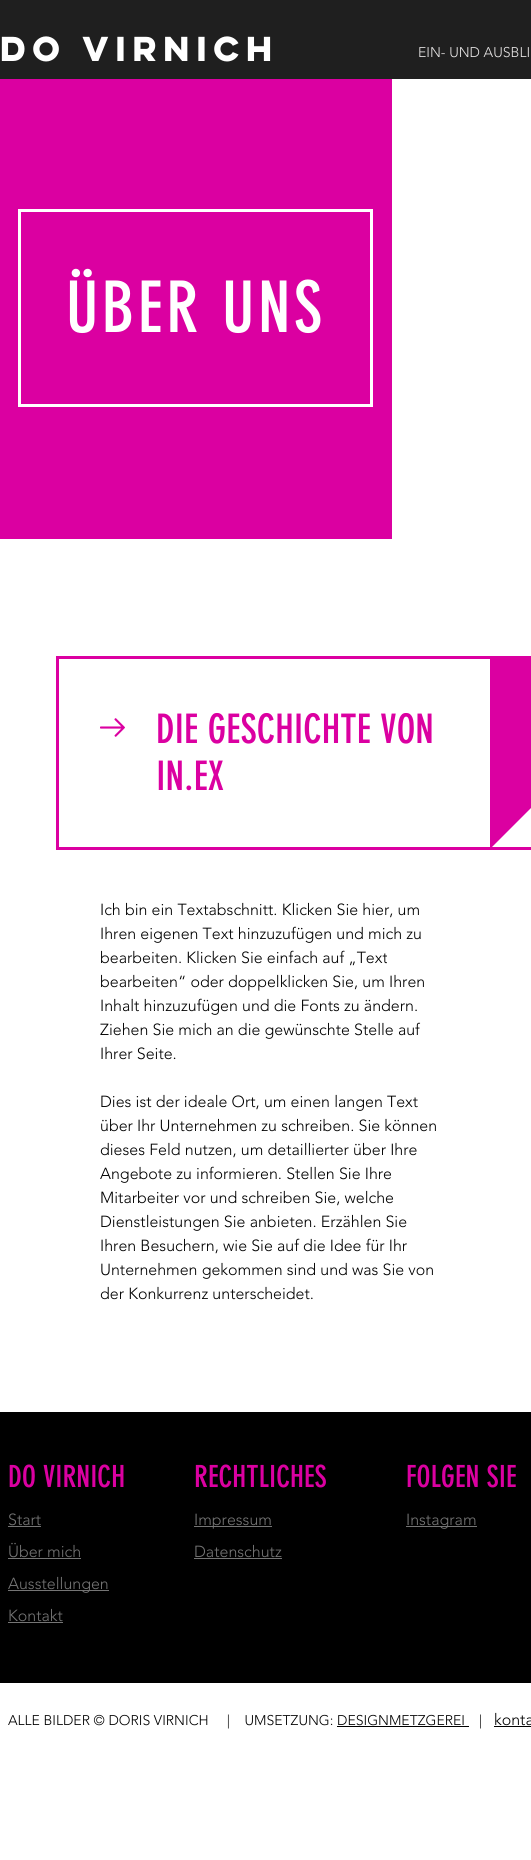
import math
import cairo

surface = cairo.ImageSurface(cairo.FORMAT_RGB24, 531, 1860)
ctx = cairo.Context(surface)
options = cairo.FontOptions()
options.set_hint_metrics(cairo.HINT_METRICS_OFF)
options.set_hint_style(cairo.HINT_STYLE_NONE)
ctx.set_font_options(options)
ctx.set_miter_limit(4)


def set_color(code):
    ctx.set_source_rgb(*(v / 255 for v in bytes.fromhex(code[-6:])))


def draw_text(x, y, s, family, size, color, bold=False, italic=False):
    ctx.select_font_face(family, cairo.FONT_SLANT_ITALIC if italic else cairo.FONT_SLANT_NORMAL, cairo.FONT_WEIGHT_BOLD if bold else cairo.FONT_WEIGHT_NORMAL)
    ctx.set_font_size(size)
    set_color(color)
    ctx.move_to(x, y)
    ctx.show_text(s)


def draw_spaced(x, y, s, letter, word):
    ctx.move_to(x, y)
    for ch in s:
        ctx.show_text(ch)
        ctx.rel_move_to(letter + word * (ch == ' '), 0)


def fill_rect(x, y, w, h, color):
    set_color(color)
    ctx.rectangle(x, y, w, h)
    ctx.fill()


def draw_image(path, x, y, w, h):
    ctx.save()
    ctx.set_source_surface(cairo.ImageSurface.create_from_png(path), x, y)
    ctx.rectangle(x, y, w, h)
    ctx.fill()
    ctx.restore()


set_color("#ffffff")
ctx.paint()
fill_rect(0, 0, 531, 79, "#1f1f1f")
draw_text(0, 61, "DO VIRNICH", "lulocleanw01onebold", 31, "#ffffff", bold=True)
draw_text(418, 57, "EIN- UND AUSBLI", "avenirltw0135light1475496 Light", 14, "#e8e6e6")
fill_rect(0, 79, 392, 460, "#db00a1")
ctx.rectangle(19.5, 210.5, 352, 195)
set_color("#ffffff")
ctx.set_line_width(3)
ctx.stroke()
ctx.select_font_face("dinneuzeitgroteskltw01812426")
ctx.set_font_size(70)
draw_spaced(66, 332, "ÜBER UNS", 3.5, 0)
ctx.rectangle(57.5, 657.5, 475, 191)
set_color("#db00a1")
ctx.stroke()
draw_image("assets/img1.png", 100, 718, 25, 19)
draw_text(156, 743, "DIE GESCHICHTE VON", "dinneuzeitgroteskltw01812426", 40, "#db00a1")
draw_text(156, 790, "IN.EX", "dinneuzeitgroteskltw01812426", 40, "#db00a1")
ctx.new_path()
ctx.move_to(490, 849)
ctx.line_to(490, 656)
ctx.line_to(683, 656)
ctx.close_path()
ctx.fill()
draw_text(100, 915, "Ich bin ein Textabschnitt. Klicken Sie hier, um", "avenirltw0135light1475496 Light", 16, "#000000")
draw_text(100, 939, "Ihren eigenen Text hinzuzufügen und mich zu", "avenirltw0135light1475496 Light", 16, "#000000")
draw_text(100, 963, "bearbeiten. Klicken Sie einfach auf „Text", "avenirltw0135light1475496 Light", 16, "#000000")
draw_text(100, 987, "bearbeiten“ oder doppelklicken Sie, um Ihren", "avenirltw0135light1475496 Light", 16, "#000000")
draw_text(100, 1011, "Inhalt hinzuzufügen und die Fonts zu ändern.", "avenirltw0135light1475496 Light", 16, "#000000")
draw_text(100, 1035, "Ziehen Sie mich an die gewünschte Stelle auf", "avenirltw0135light1475496 Light", 16, "#000000")
draw_text(100, 1059, "Ihrer Seite.", "avenirltw0135light1475496 Light", 16, "#000000")
draw_text(100, 1107, "Dies ist der ideale Ort, um einen langen Text", "avenirltw0135light1475496 Light", 16, "#000000")
draw_text(100, 1131, "über Ihr Unternehmen zu schreiben. Sie können", "avenirltw0135light1475496 Light", 16, "#000000")
draw_text(100, 1155, "dieses Feld nutzen, um detaillierter über Ihre", "avenirltw0135light1475496 Light", 16, "#000000")
draw_text(100, 1179, "Angebote zu informieren. Stellen Sie Ihre", "avenirltw0135light1475496 Light", 16, "#000000")
draw_text(100, 1203, "Mitarbeiter vor und schreiben Sie, welche", "avenirltw0135light1475496 Light", 16, "#000000")
draw_text(100, 1227, "Dienstleistungen Sie anbieten. Erzählen Sie", "avenirltw0135light1475496 Light", 16, "#000000")
draw_text(100, 1251, "Ihren Besuchern, wie Sie auf die Idee für Ihr", "avenirltw0135light1475496 Light", 16, "#000000")
draw_text(100, 1275, "Unternehmen gekommen sind und was Sie von", "avenirltw0135light1475496 Light", 16, "#000000")
draw_text(100, 1299, "der Konkurrenz unterscheidet.", "avenirltw0135light1475496 Light", 16, "#000000")
fill_rect(0, 1412, 531, 271, "#000000")
draw_text(8, 1487, "DO VIRNICH", "dinneuzeitgroteskltw01812426", 30, "#db00a1")
draw_text(194, 1487, "RECHTLICHES", "dinneuzeitgroteskltw01812426", 30, "#db00a1")
draw_text(406, 1487, "FOLGEN SIE", "dinneuzeitgroteskltw01812426", 30, "#db00a1")
draw_text(8, 1525, "Start", "avenirltw0135light1475496 Light", 16, "#757575")
fill_rect(8, 1526, 33, 1, "#757575")
draw_text(8, 1557, "Über mich", "avenirltw0135light1475496 Light", 16, "#757575")
fill_rect(8, 1558, 73, 1, "#757575")
fill_rect(8, 1590, 101, 1, "#757575")
draw_text(8, 1589, "Ausstellungen", "avenirltw0135light1475496 Light", 16, "#757575")
draw_text(8, 1621, "Kontakt", "avenirltw0135light1475496 Light", 16, "#757575")
fill_rect(8, 1622, 55, 1, "#757575")
fill_rect(194, 1526, 78, 1, "#757575")
draw_text(194, 1525, "Impressum", "avenirltw0135light1475496 Light", 16, "#757575")
draw_text(194, 1557, "Datenschutz", "avenirltw0135light1475496 Light", 16, "#757575")
fill_rect(194, 1558, 88, 1, "#757575")
fill_rect(406, 1526, 71, 1, "#757575")
draw_text(406, 1525, "Instagram", "avenirltw0135light1475496 Light", 16, "#757575")
draw_text(8, 1725, "ALLE BILDER © DORIS VIRNICH     |    UMSETZUNG: DESIGNMETZGEREI", "avenirltw0135light1475496 Light", 14, "#000000")
fill_rect(337, 1726, 132, 1, "#000000")
draw_text(479, 1725, "|", "avenirltw0135light1475496 Light", 14, "#000000")
draw_text(494, 1725, "konta", "avenirltw0135light1475496 Light", 16, "#000000")
fill_rect(494, 1726, 37, 1, "#000000")
surface.write_to_png("output.png")
